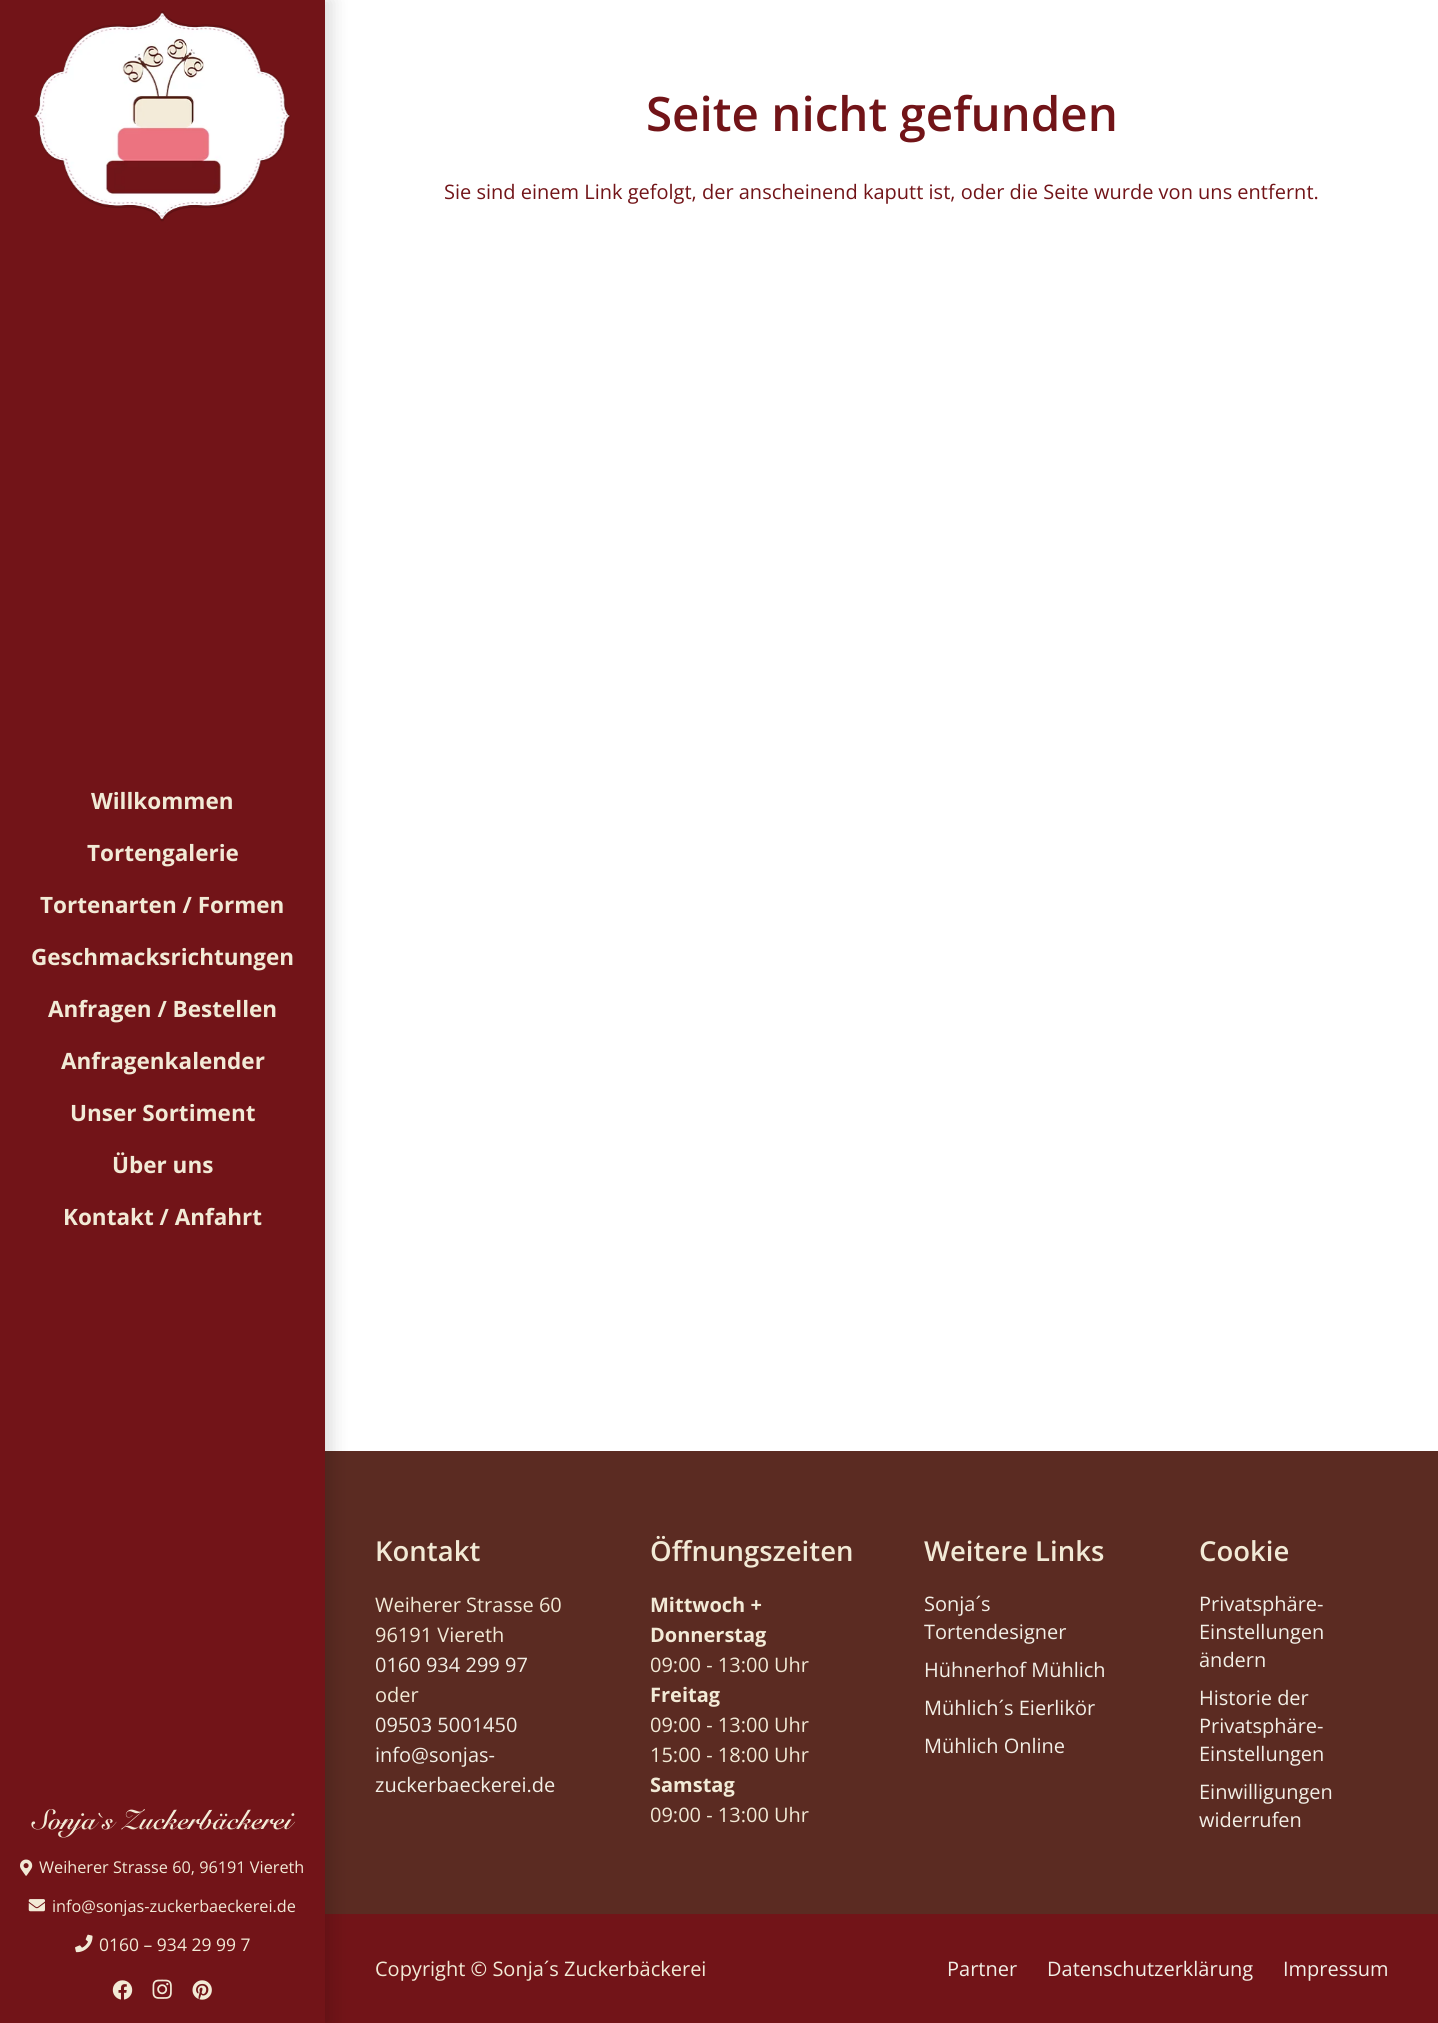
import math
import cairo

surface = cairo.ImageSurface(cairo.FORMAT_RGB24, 1438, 2023)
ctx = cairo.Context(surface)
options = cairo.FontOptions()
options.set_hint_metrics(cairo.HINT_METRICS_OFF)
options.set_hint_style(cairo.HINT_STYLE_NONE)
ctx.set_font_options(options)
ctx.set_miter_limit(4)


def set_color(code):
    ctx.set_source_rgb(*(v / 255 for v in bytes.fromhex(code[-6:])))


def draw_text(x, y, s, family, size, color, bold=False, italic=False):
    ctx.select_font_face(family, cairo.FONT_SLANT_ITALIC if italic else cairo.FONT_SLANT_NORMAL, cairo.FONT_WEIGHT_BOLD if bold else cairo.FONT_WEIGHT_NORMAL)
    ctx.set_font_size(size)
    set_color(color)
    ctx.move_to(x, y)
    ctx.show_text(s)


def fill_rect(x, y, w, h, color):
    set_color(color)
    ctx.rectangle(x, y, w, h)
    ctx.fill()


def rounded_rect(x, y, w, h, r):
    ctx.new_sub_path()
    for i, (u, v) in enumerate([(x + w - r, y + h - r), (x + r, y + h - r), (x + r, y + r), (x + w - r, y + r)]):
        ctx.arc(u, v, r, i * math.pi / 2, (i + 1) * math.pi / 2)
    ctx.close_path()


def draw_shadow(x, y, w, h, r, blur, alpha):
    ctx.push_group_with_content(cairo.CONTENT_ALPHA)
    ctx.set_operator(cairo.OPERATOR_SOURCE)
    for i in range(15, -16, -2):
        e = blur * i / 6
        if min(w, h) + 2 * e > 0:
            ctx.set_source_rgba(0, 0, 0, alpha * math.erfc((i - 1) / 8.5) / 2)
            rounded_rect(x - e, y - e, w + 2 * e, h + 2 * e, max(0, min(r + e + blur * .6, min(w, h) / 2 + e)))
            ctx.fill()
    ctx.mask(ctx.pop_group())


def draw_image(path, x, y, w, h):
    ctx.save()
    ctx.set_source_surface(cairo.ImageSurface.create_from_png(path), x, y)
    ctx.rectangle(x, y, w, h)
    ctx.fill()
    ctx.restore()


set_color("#ffffff")
ctx.paint()
draw_text(646, 131, "Seite nicht gefunden", "Open Sans SemiBold", 47.5, "#721418")
draw_text(444, 199, "Sie sind einem Link gefolgt, der anscheinend kaputt ist, oder die Seite wurde von uns entfernt.", "Open Sans", 20, "#721418")
fill_rect(325, 1451, 1113, 463, "#5b2b22")
fill_rect(325, 1914, 1113, 109, "#721418")
set_color("#000000")
draw_shadow(6, 0, 325, 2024, 0, 9.5, 0.15)
gradient = cairo.LinearGradient(162, 0, 163, 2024)
gradient.add_color_stop_rgba(0.5, 0.447, 0.078, 0.094, 1)
gradient.add_color_stop_rgba(1, 0.357, 0.169, 0.133, 1)
ctx.set_source(gradient)
ctx.rectangle(0, 0, 325, 231)
ctx.fill()
draw_image("assets/img1.png", 34, 11, 257, 211)
fill_rect(0, 231, 325, 1792, "#721418")
draw_text(91, 809, "Willkommen", "Open Sans", 22.5, "#f2ead6", bold=True)
draw_text(87, 861, "Tortengalerie", "Open Sans", 22.5, "#f2ead6", bold=True)
draw_text(40, 913, "Tortenarten / Formen", "Open Sans", 22.5, "#f2ead6", bold=True)
draw_text(31, 965, "Geschmacksrichtungen", "Open Sans", 22.5, "#f2ead6", bold=True)
draw_text(48, 1017, "Anfragen / Bestellen", "Open Sans", 22.5, "#f2ead6", bold=True)
draw_text(61, 1069, "Anfragenkalender", "Open Sans", 22.5, "#f2ead6", bold=True)
draw_text(70, 1121, "Unser Sortiment", "Open Sans", 22.5, "#f2ead6", bold=True)
draw_text(112, 1173, "Über uns", "Open Sans", 22.5, "#f2ead6", bold=True)
draw_text(63, 1225, "Kontakt / Anfahrt", "Open Sans", 22.5, "#f2ead6", bold=True)
draw_text(33, 1829, "Sonja`s Zuckerbäckerei", "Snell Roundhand", 27.5, "#f2ead6", bold=True, italic=True)
draw_image("assets/img2.png", 20, 1859, 13, 17)
draw_text(39, 1873, "Weiherer Strasse 60, 96191 Viereth", "Open Sans", 16.25, "#f2ead6")
draw_image("assets/img3.png", 28, 1899, 17, 13)
draw_text(52, 1912, "info@sonjas-zuckerbaeckerei.de", "Open Sans", 16.25, "#f2ead6")
draw_image("assets/img4.png", 75, 1934, 18, 19)
draw_text(99, 1951, "0160 – 934 29 99 7", "Open Sans", 17.5, "#f2ead6")
draw_image("assets/img5.png", 112, 1980, 21, 20)
draw_image("assets/img6.png", 152, 1979, 20, 20)
draw_image("assets/img7.png", 192, 1980, 20, 20)
draw_text(375, 1561, "Kontakt", "Open Sans SemiBold", 27.5, "#f2ead6")
draw_text(375, 1612, "Weiherer Strasse 60", "Open Sans", 20, "#f2ead6")
draw_text(375, 1642, "96191 Viereth", "Open Sans", 20, "#f2ead6")
draw_text(375, 1672, "0160 934 299 97", "Open Sans", 20, "#f2efe6")
draw_text(375, 1702, "oder", "Open Sans", 20, "#f2ead6")
draw_text(375, 1732, "09503 5001450", "Open Sans", 20, "#f2efe6")
draw_text(375, 1762, "info@sonjas-", "Open Sans", 20, "#f2efe6")
draw_text(375, 1792, "zuckerbaeckerei.de", "Open Sans", 20, "#f2efe6")
draw_text(650, 1561, "Öffnungszeiten", "Open Sans SemiBold", 27.5, "#f2ead6")
draw_text(650, 1612, "Mittwoch +", "Open Sans", 20, "#f2ead6", bold=True)
draw_text(650, 1642, "Donnerstag", "Open Sans", 20, "#f2ead6", bold=True)
draw_text(650, 1672, "09:00 - 13:00 Uhr", "Open Sans", 20, "#f2ead6")
draw_text(650, 1702, "Freitag", "Open Sans", 20, "#f2ead6", bold=True)
draw_text(650, 1732, "09:00 - 13:00 Uhr", "Open Sans", 20, "#f2ead6")
draw_text(650, 1762, "15:00 - 18:00 Uhr", "Open Sans", 20, "#f2ead6")
draw_text(650, 1792, "Samstag", "Open Sans", 20, "#f2ead6", bold=True)
draw_text(650, 1822, "09:00 - 13:00 Uhr", "Open Sans", 20, "#f2ead6")
draw_text(924, 1561, "Weitere Links", "Open Sans SemiBold", 27.5, "#f2ead6")
draw_text(924, 1611, "Sonja´s", "Open Sans", 20, "#f2efe6")
draw_text(924, 1639, "Tortendesigner", "Open Sans", 20, "#f2efe6")
draw_text(924, 1677, "Hühnerhof Mühlich", "Open Sans", 20, "#f2efe6")
draw_text(924, 1715, "Mühlich´s Eierlikör", "Open Sans", 20, "#f2efe6")
draw_text(924, 1753, "Mühlich Online", "Open Sans", 20, "#f2efe6")
draw_text(1199, 1561, "Cookie", "Open Sans SemiBold", 27.5, "#f2ead6")
draw_text(1199, 1611, "Privatsphäre-", "Open Sans", 20, "#f2efe6")
draw_text(1199, 1639, "Einstellungen", "Open Sans", 20, "#f2efe6")
draw_text(1199, 1667, "ändern", "Open Sans", 20, "#f2efe6")
draw_text(1199, 1705, "Historie der", "Open Sans", 20, "#f2efe6")
draw_text(1199, 1733, "Privatsphäre-", "Open Sans", 20, "#f2efe6")
draw_text(1199, 1761, "Einstellungen", "Open Sans", 20, "#f2efe6")
draw_text(1199, 1799, "Einwilligungen", "Open Sans", 20, "#f2efe6")
draw_text(1199, 1827, "widerrufen", "Open Sans", 20, "#f2efe6")
draw_text(375, 1976, "Copyright © Sonja´s Zuckerbäckerei", "Open Sans", 20, "#f2ead6")
draw_text(947, 1976, "Partner", "Open Sans", 20, "#f2efe6")
draw_text(1047, 1976, "Datenschutzerklärung", "Open Sans", 20, "#f2efe6")
draw_text(1283, 1976, "Impressum", "Open Sans", 20, "#f2efe6")
surface.write_to_png("output.png")
